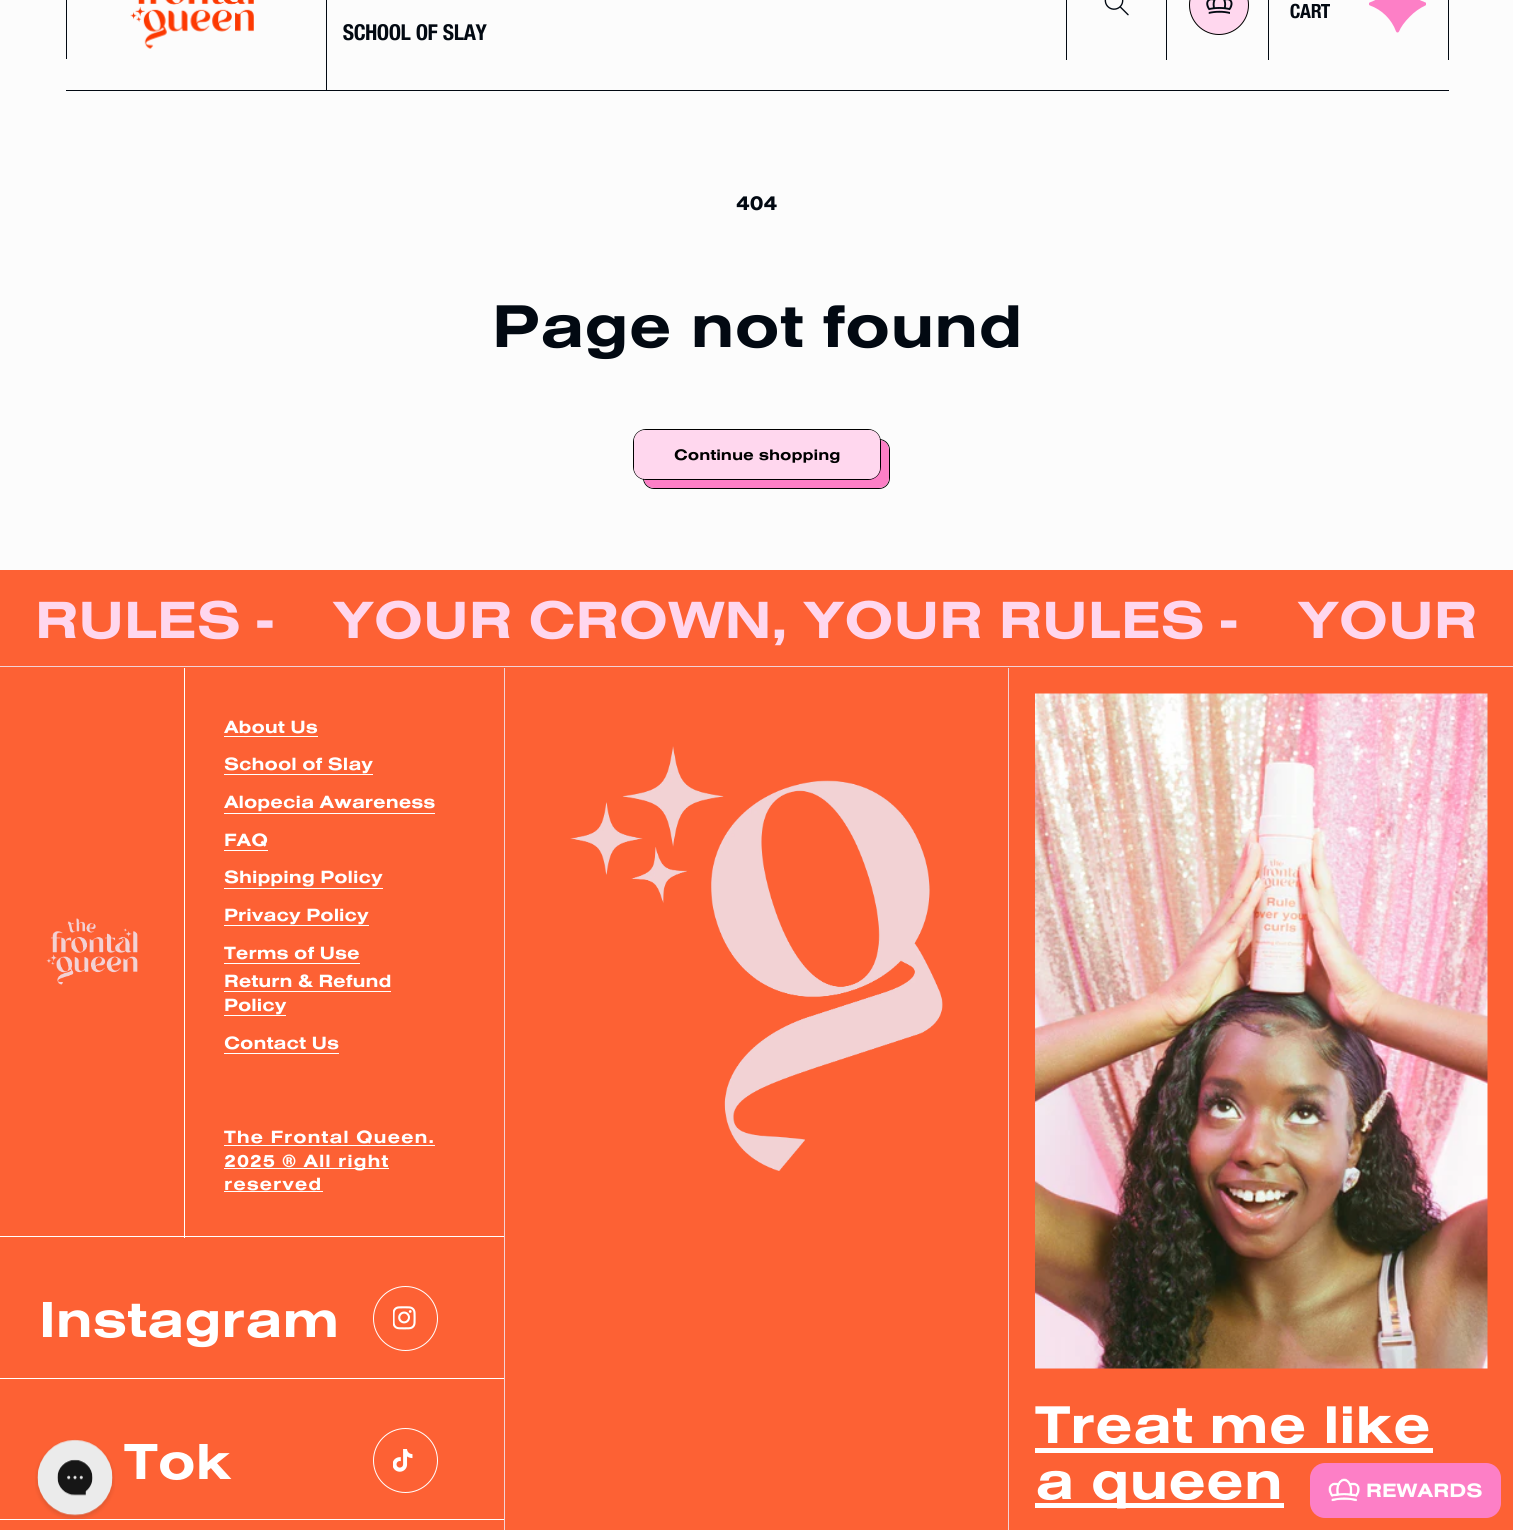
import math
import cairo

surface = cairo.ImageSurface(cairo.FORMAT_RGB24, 1513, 1530)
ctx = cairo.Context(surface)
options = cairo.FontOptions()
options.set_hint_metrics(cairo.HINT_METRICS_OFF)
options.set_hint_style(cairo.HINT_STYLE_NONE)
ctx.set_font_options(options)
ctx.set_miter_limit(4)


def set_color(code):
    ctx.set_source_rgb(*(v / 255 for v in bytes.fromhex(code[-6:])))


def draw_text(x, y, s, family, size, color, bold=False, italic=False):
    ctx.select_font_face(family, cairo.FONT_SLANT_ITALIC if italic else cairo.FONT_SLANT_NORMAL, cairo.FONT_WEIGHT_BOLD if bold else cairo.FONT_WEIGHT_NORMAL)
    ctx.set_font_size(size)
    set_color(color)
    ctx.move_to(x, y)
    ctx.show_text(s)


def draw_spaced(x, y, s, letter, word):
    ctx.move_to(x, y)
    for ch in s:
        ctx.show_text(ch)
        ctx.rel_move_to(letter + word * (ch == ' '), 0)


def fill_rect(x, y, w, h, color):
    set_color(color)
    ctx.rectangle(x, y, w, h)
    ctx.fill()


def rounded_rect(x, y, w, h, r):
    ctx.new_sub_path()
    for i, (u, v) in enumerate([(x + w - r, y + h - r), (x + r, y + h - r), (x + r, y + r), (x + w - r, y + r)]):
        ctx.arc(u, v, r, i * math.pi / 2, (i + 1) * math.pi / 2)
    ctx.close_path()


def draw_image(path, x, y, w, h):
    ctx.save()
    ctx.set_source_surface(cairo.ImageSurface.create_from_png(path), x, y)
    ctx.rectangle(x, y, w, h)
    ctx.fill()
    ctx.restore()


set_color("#fcfcfc")
ctx.paint()
fill_rect(66, 90, 1383, 1, "#020912")
fill_rect(66, 0, 1, 59, "#020912")
draw_image("assets/img1.png", 130, 0, 124, 49)
fill_rect(1448, 0, 1, 60, "#020912")
fill_rect(1066, 0, 1, 60, "#020912")
fill_rect(1166, 0, 1, 60, "#020912")
draw_image("assets/img2.png", 1104, 0, 25, 16)
fill_rect(1268, 0, 1, 60, "#020912")
set_color("#ffd7ee")
ctx.arc(1219, 5, 29.5, 0, 2 * math.pi)
ctx.fill_preserve()
set_color("#000000")
ctx.set_line_width(1)
ctx.stroke()
draw_image("assets/img3.png", 1206, 0, 27, 14)
draw_text(1290, 18, "CART", "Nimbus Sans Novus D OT", 21, "#020912", bold=True)
draw_image("assets/img4.png", 1369, 0, 57, 33)
fill_rect(326, 0, 1, 90, "#020912")
draw_text(343, 40, "SCHOOL OF SLAY", "Nimbus Sans Novus D OT", 23.5, "#020912", bold=True)
draw_text(736, 210, "404", "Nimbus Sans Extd", 21, "#020912", bold=True)
draw_text(492, 347, "Page not found", "Nimbus Sans Extd", 62.5, "#020912", bold=True)
rounded_rect(643.5, 439.5, 246, 49, 10.5)
set_color("#000000")
ctx.stroke()
set_color("#fd7fc6")
rounded_rect(644, 440, 245, 48, 10)
ctx.fill()
rounded_rect(633.5, 429.5, 247, 50, 12.5)
set_color("#000000")
ctx.stroke()
set_color("#ffd7ee")
rounded_rect(634, 430, 246, 49, 11)
ctx.fill()
draw_text(674, 460, "Continue shopping", "Nimbus Sans Extd", 15.75, "#000000", bold=True)
fill_rect(0, 570, 1513, 960, "#fd6134")
draw_text(35, 638, "RULES -", "Nimbus Sans Extd", 54.25, "#ffd7ee", bold=True)
draw_text(333, 638, "YOUR CROWN, YOUR RULES -", "Nimbus Sans Extd", 54.25, "#ffd7ee", bold=True)
draw_text(1298, 638, "YOUR", "Nimbus Sans Extd", 54.25, "#ffd7ee", bold=True)
fill_rect(0, 666, 1513, 1, "#f3d2d5")
fill_rect(504, 668, 1, 862, "#f3d2d5")
fill_rect(184, 668, 1, 570, "#ffffff")
fill_rect(0, 1236, 504, 1, "#ffffff")
draw_image("assets/img5.png", 46, 918, 92, 67)
draw_text(224, 733, "About Us", "Nimbus Sans Extd", 18.4, "#ffffff", bold=True)
fill_rect(224, 736, 94, 1, "#ffffff")
draw_text(224, 770, "School of Slay", "Nimbus Sans Extd", 18.4, "#ffffff", bold=True)
fill_rect(224, 774, 149, 1, "#ffffff")
draw_text(224, 808, "Alopecia Awareness", "Nimbus Sans Extd", 18.4, "#ffffff", bold=True)
fill_rect(224, 813, 211, 1, "#ffffff")
draw_text(224, 846, "FAQ", "Nimbus Sans Extd", 18.4, "#ffffff", bold=True)
fill_rect(224, 850, 44, 1, "#ffffff")
draw_text(224, 883, "Shipping Policy", "Nimbus Sans Extd", 18.4, "#ffffff", bold=True)
fill_rect(224, 888, 159, 1, "#ffffff")
draw_text(224, 921, "Privacy Policy", "Nimbus Sans Extd", 18.4, "#ffffff", bold=True)
fill_rect(224, 925, 145, 1, "#ffffff")
draw_text(224, 959, "Terms of Use", "Nimbus Sans Extd", 18.4, "#ffffff", bold=True)
fill_rect(224, 963, 136, 1, "#ffffff")
draw_text(224, 987, "Return & Refund", "Nimbus Sans Extd", 18.4, "#ffffff", bold=True)
fill_rect(224, 991, 167, 1, "#ffffff")
draw_text(224, 1011, "Policy", "Nimbus Sans Extd", 18.4, "#ffffff", bold=True)
fill_rect(224, 1015, 62, 1, "#ffffff")
draw_text(224, 1049, "Contact Us", "Nimbus Sans Extd", 18.4, "#ffffff", bold=True)
fill_rect(224, 1053, 115, 1, "#ffffff")
draw_spaced(224, 1143, "The Frontal Queen.", 0.9, 0)
fill_rect(224, 1145, 211, 1, "#ffffff")
fill_rect(224, 1168, 165, 1, "#ffffff")
draw_spaced(224, 1167, "2025 ® All right", 0.9, 0)
draw_spaced(224, 1190, "reserved", 0.9, 0)
fill_rect(224, 1191, 99, 1, "#ffffff")
fill_rect(0, 1378, 504, 1, "#ffffff")
draw_text(39, 1337, "Instagram", "Nimbus Sans Extd", 52.5, "#ffffff", bold=True)
ctx.new_path()
ctx.arc(405.5, 1318.5, 32, 0, 2 * math.pi)
ctx.stroke()
draw_image("assets/img6.png", 393, 1306, 23, 24)
fill_rect(0, 1519, 504, 1, "#ffffff")
draw_text(124, 1479, "Tok", "Nimbus Sans Extd", 52.5, "#ffffff", bold=True)
ctx.new_path()
ctx.arc(405.5, 1460.5, 32, 0, 2 * math.pi)
ctx.stroke()
draw_image("assets/img7.png", 393, 1449, 20, 23)
fill_rect(1008, 668, 1, 862, "#f3d2d5")
draw_image("assets/img8.png", 570, 746, 373, 425)
draw_image("assets/img9.png", 1035, 693, 453, 676)
draw_text(1035, 1443, "Treat me like", "Nimbus Sans Extd", 55, "#ffffff", bold=True)
fill_rect(1035, 1448, 398, 5, "#ffffff")
fill_rect(1035, 1503, 249, 5, "#ffffff")
draw_text(1035, 1499, "a queen", "Nimbus Sans Extd", 55, "#ffffff", bold=True)
draw_image("assets/img10.png", 35, 1439, 80, 81)
set_color("#fd7fc6")
rounded_rect(1310, 1463, 191, 55, 15)
ctx.fill()
draw_image("assets/img11.png", 1328, 1478, 32, 24)
draw_text(1366, 1497, "REWARDS", "Nimbus Sans Extd", 20, "#ffffff", bold=True)
surface.write_to_png("output.png")
